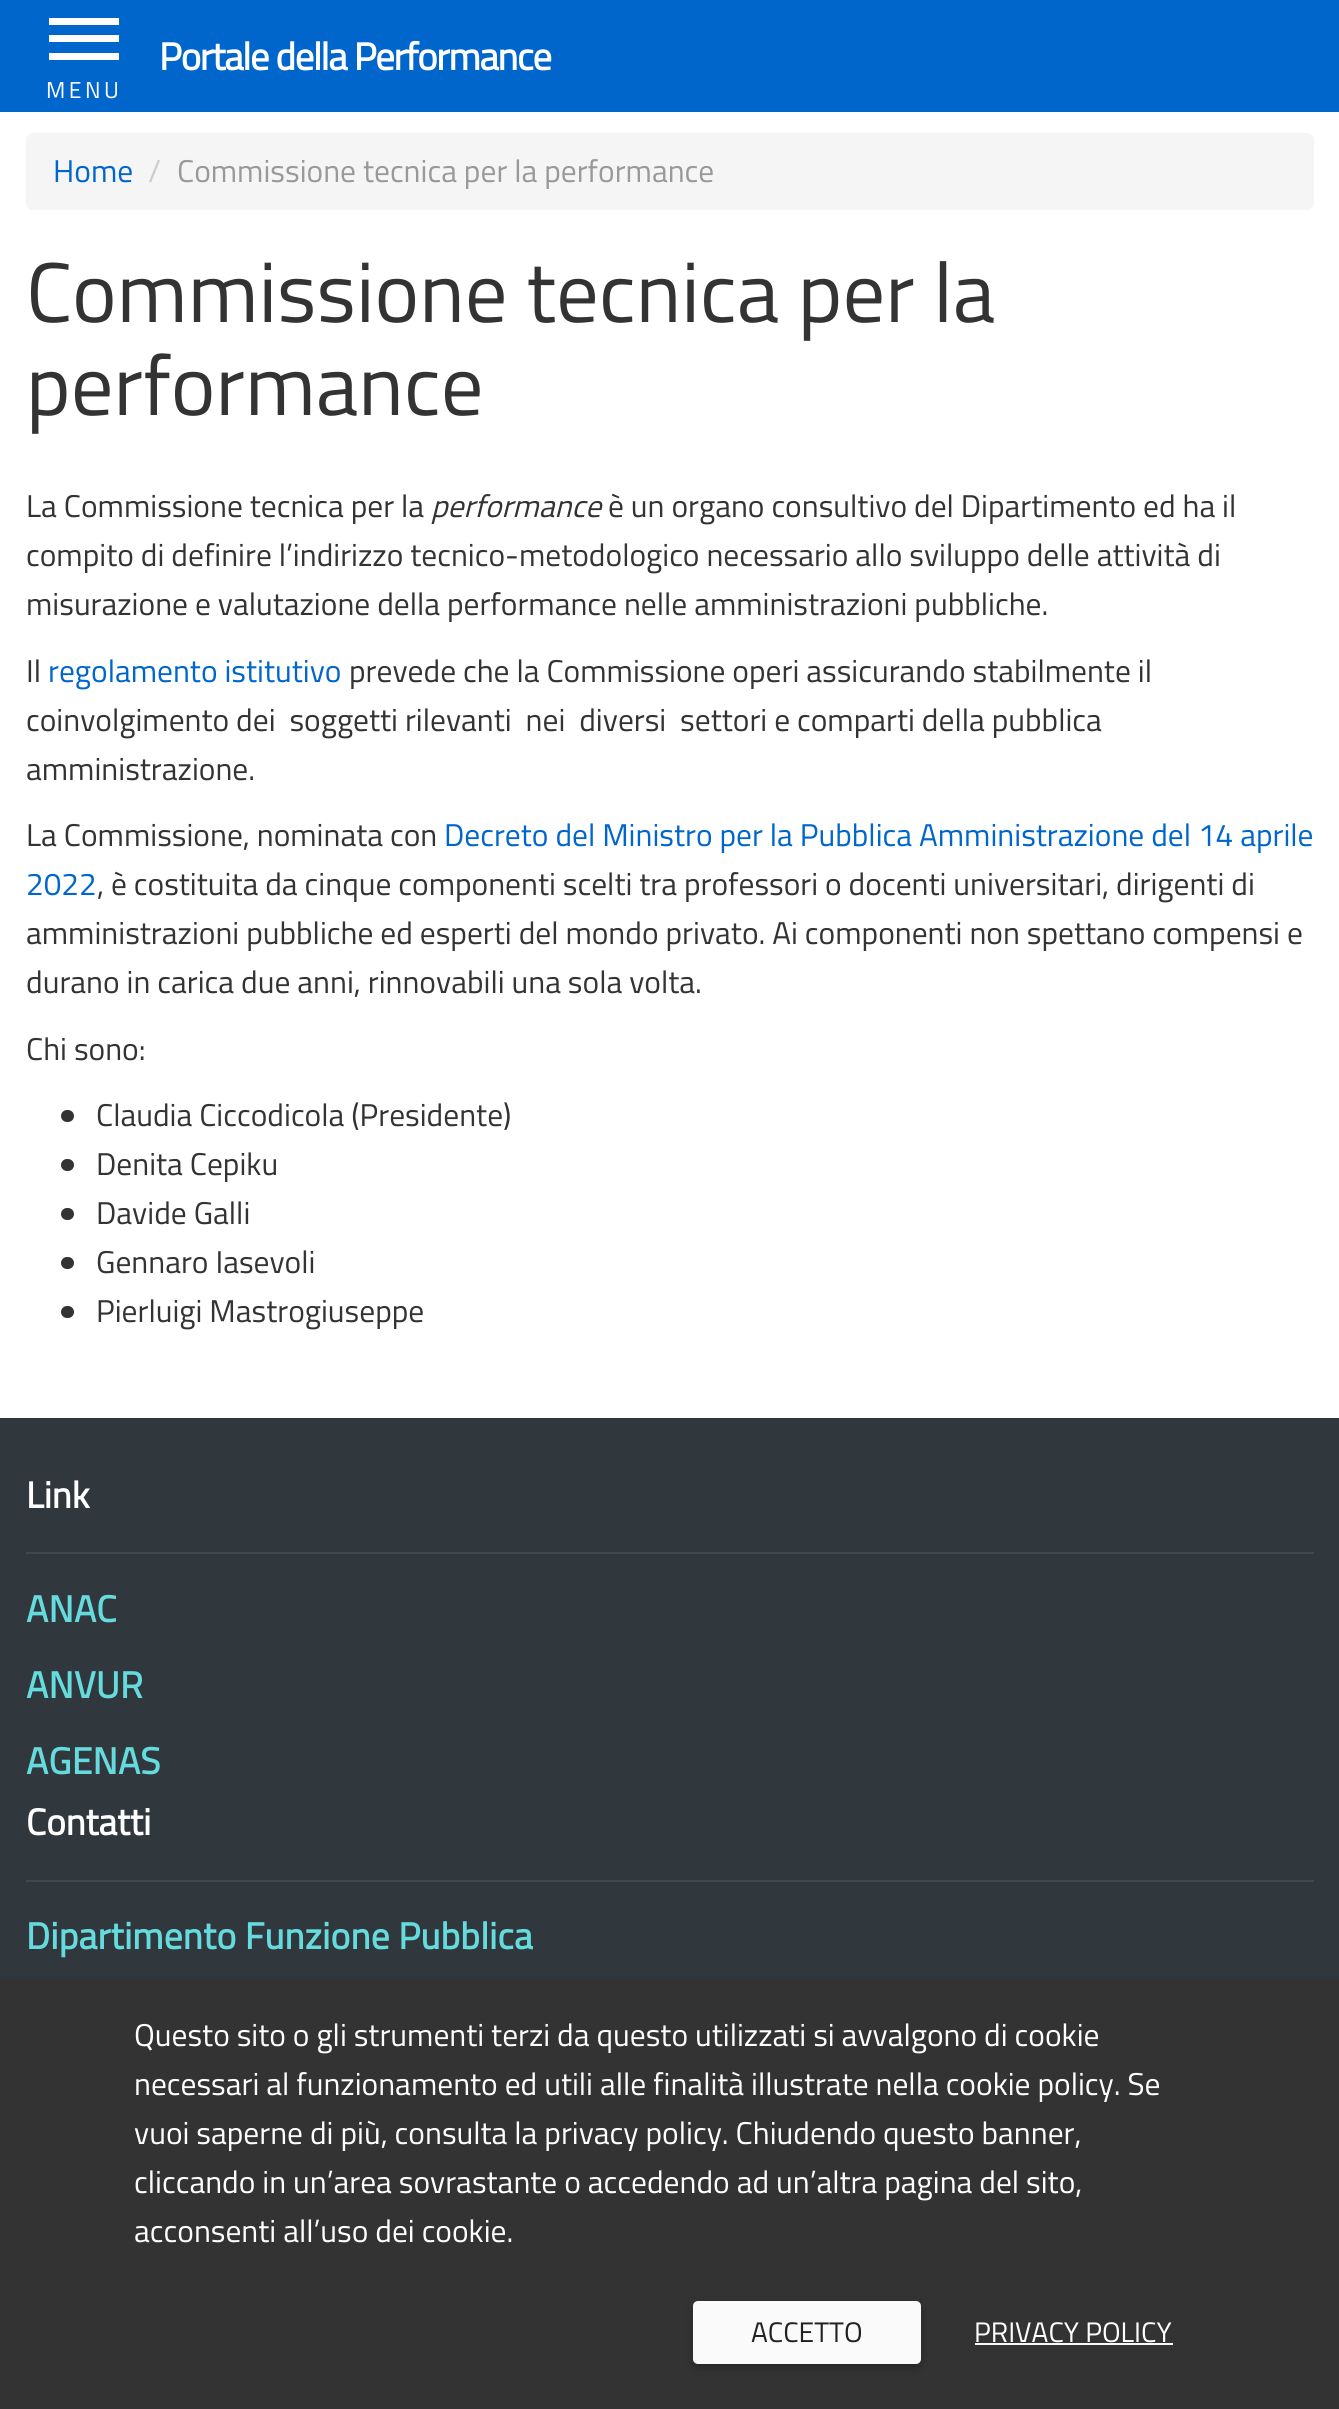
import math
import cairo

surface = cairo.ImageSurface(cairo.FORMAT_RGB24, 1339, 2409)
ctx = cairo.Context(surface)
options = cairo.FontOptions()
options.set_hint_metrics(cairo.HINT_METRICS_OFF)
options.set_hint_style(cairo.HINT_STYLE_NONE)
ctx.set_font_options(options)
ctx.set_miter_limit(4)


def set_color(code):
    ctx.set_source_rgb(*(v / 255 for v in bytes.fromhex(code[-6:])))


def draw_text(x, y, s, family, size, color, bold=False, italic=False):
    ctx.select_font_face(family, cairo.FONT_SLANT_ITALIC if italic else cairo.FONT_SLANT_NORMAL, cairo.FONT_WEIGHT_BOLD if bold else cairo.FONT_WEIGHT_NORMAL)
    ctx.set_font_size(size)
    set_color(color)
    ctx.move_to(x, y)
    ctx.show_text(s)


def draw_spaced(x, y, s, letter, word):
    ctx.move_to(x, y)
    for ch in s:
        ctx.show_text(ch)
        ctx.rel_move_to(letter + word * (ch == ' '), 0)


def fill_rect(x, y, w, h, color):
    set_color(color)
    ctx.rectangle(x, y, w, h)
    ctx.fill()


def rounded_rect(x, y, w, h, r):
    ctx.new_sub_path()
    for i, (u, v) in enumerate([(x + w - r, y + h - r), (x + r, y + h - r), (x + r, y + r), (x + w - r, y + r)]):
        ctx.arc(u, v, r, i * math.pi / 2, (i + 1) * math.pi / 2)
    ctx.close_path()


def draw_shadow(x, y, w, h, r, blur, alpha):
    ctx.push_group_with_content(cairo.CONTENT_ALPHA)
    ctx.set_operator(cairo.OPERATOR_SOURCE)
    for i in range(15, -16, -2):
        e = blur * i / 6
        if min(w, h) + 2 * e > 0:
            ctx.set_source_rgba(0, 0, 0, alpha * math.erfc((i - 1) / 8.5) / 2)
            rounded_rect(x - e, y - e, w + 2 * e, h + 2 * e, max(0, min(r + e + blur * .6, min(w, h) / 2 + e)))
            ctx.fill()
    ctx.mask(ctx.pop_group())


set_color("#ffffff")
ctx.paint()
fill_rect(0, 0, 1339, 112, "#0066cc")
ctx.select_font_face("Titillium Web", cairo.FONT_SLANT_NORMAL, cairo.FONT_WEIGHT_BOLD)
ctx.set_font_size(38.5)
set_color("#ffffff")
draw_spaced(159, 70, "Portale della Performance", -1.2, 0)
fill_rect(49, 18, 70, 7, "#ffffff")
fill_rect(49, 35, 70, 7, "#ffffff")
fill_rect(49, 53, 70, 7, "#ffffff")
ctx.select_font_face("Titillium Web")
ctx.set_font_size(23)
draw_spaced(46, 98, "MENU", 3.5, 0)
set_color("#f5f5f5")
rounded_rect(26, 133, 1288, 77, 7)
ctx.fill()
draw_text(53, 182, "Home", "Titillium Web", 31.5, "#0066cc")
draw_text(148, 182, "/", "Titillium Web", 31.5, "#cccccc")
draw_text(177, 182, "Commissione tecnica per la performance", "Titillium Web", 31.5, "#999999")
draw_text(26, 322, "Commissione tecnica per la", "Titillium Web", 84.75, "#333333")
draw_text(26, 415, "performance", "Titillium Web", 84.75, "#333333")
draw_text(26, 517, "La Commissione tecnica per la", "Titillium Web", 31.5, "#333333")
draw_text(431, 517, "performance", "Titillium Web", 31.5, "#333333", italic=True)
draw_text(608, 517, "è un organo consultivo del Dipartimento ed ha il", "Titillium Web", 31.5, "#333333")
draw_text(26, 566, "compito di definire l’indirizzo tecnico-metodologico necessario allo sviluppo delle attività di", "Titillium Web", 31.5, "#333333")
draw_text(26, 615, "misurazione e valutazione della performance nelle amministrazioni pubbliche.", "Titillium Web", 31.5, "#333333")
draw_text(26, 682, "Il", "Titillium Web", 31.5, "#333333")
draw_text(48, 682, "regolamento istitutivo", "Titillium Web", 31.5, "#0066cc")
draw_text(349, 682, "prevede che la Commissione operi assicurando stabilmente il", "Titillium Web", 31.5, "#333333")
draw_text(26, 731, "coinvolgimento dei  soggetti rilevanti  nei  diversi  settori e comparti della pubblica", "Titillium Web", 31.5, "#333333")
draw_text(26, 780, "amministrazione.", "Titillium Web", 31.5, "#333333")
draw_text(26, 846, "La Commissione, nominata con", "Titillium Web", 31.5, "#333333")
draw_text(444, 846, "Decreto del Ministro per la Pubblica Amministrazione del 14 aprile", "Titillium Web", 31.5, "#0066cc")
draw_text(26, 895, "2022", "Titillium Web", 31.5, "#0066cc")
draw_text(97, 895, ", è costituita da cinque componenti scelti tra professori o docenti universitari, dirigenti di", "Titillium Web", 31.5, "#333333")
draw_text(26, 944, "amministrazioni pubbliche ed esperti del mondo privato. Ai componenti non spettano compensi e", "Titillium Web", 31.5, "#333333")
draw_text(26, 993, "durano in carica due anni, rinnovabili una sola volta.", "Titillium Web", 31.5, "#333333")
draw_text(26, 1060, "Chi sono:", "Titillium Web", 31.5, "#333333")
rounded_rect(61, 1110, 13, 12, 6)
ctx.fill()
draw_text(96, 1126, "Claudia Ciccodicola (Presidente)", "Titillium Web", 31.5, "#333333")
rounded_rect(61, 1159, 13, 12, 6)
ctx.fill()
draw_text(96, 1175, "Denita Cepiku", "Titillium Web", 31.5, "#333333")
rounded_rect(61, 1208, 13, 12, 6)
ctx.fill()
draw_text(96, 1224, "Davide Galli", "Titillium Web", 31.5, "#333333")
rounded_rect(61, 1257, 13, 12, 6)
ctx.fill()
draw_text(96, 1273, "Gennaro Iasevoli", "Titillium Web", 31.5, "#333333")
rounded_rect(61, 1306, 13, 12, 6)
ctx.fill()
draw_text(96, 1322, "Pierluigi Mastrogiuseppe", "Titillium Web", 31.5, "#333333")
fill_rect(0, 1418, 1339, 561, "#30373d")
fill_rect(26, 1552, 1288, 2, "#3e484f")
draw_text(26, 1508, "Link", "Titillium Web", 37, "#ffffff", bold=True)
ctx.set_font_size(37.25)
set_color("#65dbde")
draw_spaced(26, 1622, "ANAC", 0.25, 0)
draw_spaced(26, 1698, "ANVUR", 0.25, 0)
draw_spaced(26, 1774, "AGENAS", 0.25, 0)
fill_rect(26, 1880, 1288, 2, "#3e484f")
draw_text(26, 1835, "Contatti", "Titillium Web", 37, "#ffffff", bold=True)
ctx.set_font_size(37.25)
set_color("#65dbde")
draw_spaced(26, 1949, "Dipartimento Funzione Pubblica", 0.25, 0)
set_color("#000000")
draw_shadow(0, 1983, 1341, 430, 0, 4.5, 0.26)
fill_rect(0, 1979, 1339, 430, "#333333")
draw_text(134, 2046, "Questo sito o gli strumenti terzi da questo utilizzati si avvalgono di cookie", "Titillium Web", 31.5, "#ffffff")
draw_text(134, 2095, "necessari al funzionamento ed utili alle finalità illustrate nella cookie policy. Se", "Titillium Web", 31.5, "#ffffff")
draw_text(134, 2144, "vuoi saperne di più, consulta la privacy policy. Chiudendo questo banner,", "Titillium Web", 31.5, "#ffffff")
draw_text(134, 2193, "cliccando in un’area sovrastante o accedendo ad un’altra pagina del sito,", "Titillium Web", 31.5, "#ffffff")
draw_text(134, 2242, "acconsenti all’uso dei cookie.", "Titillium Web", 31.5, "#ffffff")
set_color("#000000")
draw_shadow(693, 2305, 228, 63, 5, 4.5, 0.26)
set_color("#fafafa")
rounded_rect(693, 2301, 228, 63, 5)
ctx.fill()
draw_text(751, 2342, "ACCETTO", "Titillium Web", 28.25, "#212121")
draw_text(974, 2342, "PRIVACY POLICY", "Titillium Web", 28.25, "#ffffff")
fill_rect(975, 2343, 198, 2, "#fafafa")
surface.write_to_png("output.png")
